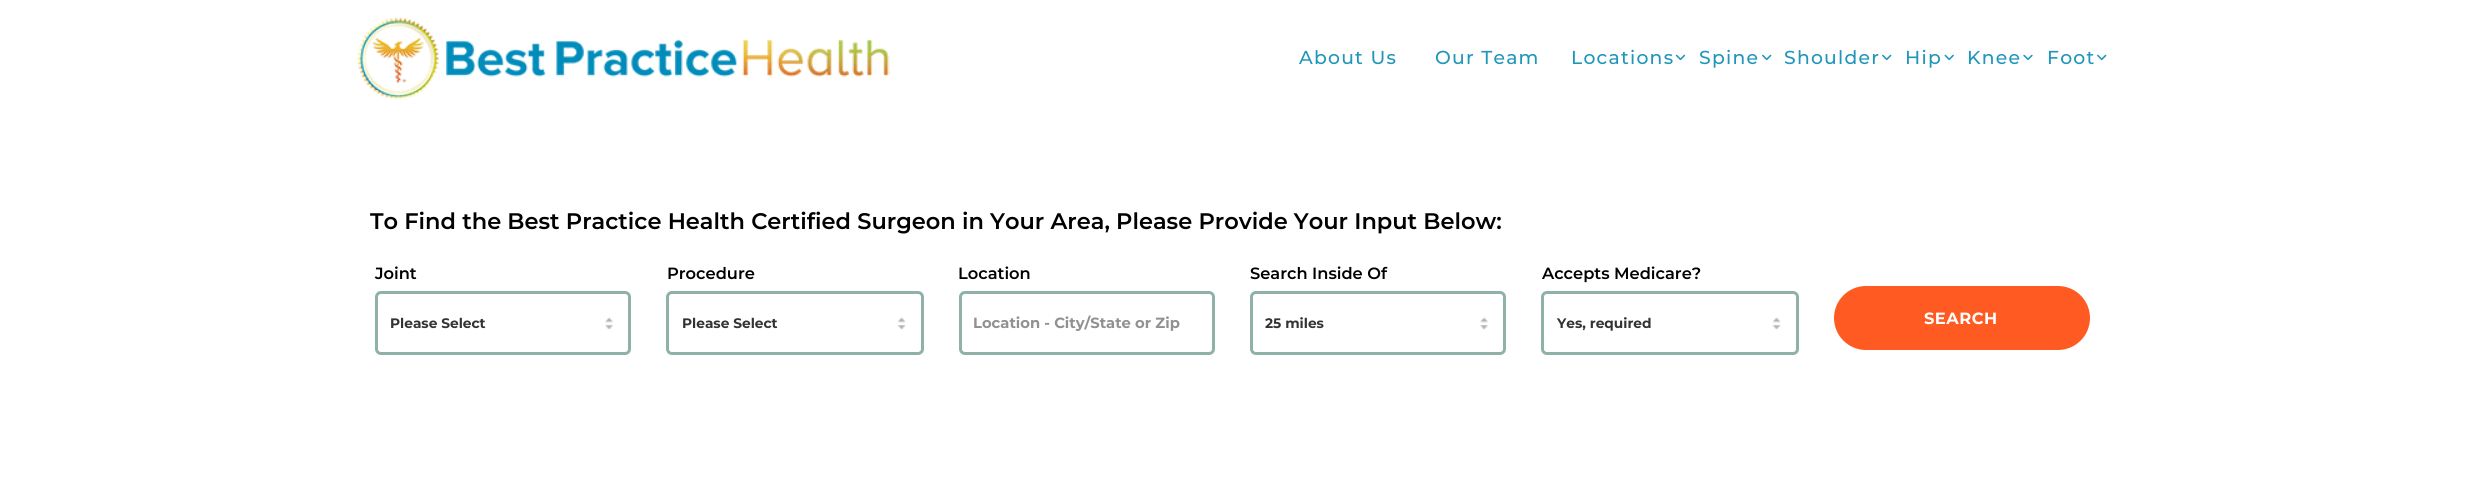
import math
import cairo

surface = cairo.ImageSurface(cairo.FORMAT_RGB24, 2465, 483)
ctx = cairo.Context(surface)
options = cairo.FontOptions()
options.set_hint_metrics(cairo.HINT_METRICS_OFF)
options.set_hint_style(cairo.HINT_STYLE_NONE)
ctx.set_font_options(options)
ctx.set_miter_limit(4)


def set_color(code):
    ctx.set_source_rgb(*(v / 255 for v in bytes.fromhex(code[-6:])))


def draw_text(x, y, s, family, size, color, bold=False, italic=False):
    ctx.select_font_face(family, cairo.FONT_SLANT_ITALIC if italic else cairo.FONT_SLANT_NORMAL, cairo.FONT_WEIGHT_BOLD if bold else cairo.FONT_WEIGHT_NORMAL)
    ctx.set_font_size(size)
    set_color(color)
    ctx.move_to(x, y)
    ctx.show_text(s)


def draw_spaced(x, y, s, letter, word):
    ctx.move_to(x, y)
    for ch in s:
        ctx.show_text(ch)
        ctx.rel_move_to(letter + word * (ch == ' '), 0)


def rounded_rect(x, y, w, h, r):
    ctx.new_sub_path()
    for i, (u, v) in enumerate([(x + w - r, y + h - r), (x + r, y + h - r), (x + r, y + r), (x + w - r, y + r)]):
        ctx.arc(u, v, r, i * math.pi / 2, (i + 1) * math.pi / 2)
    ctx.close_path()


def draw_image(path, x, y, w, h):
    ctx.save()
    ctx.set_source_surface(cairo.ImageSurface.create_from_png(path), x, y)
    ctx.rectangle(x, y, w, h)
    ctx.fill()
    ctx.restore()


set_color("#ffffff")
ctx.paint()
draw_image("assets/img1.png", 357, 17, 533, 83)
ctx.select_font_face("Montserrat Medium")
ctx.set_font_size(18.75)
set_color("#2196ba")
draw_spaced(1299, 64, "About Us", 1.25, 0)
draw_spaced(1435, 64, "Our Team", 1.25, 0)
draw_spaced(1571, 64, "Locations", 1.25, 0)
draw_image("assets/img2.png", 1675, 54, 11, 7)
draw_spaced(1699, 64, "Spine", 1.25, 0)
draw_image("assets/img3.png", 1762, 54, 10, 7)
draw_spaced(1784, 64, "Shoulder", 1.25, 0)
draw_image("assets/img3.png", 1882, 54, 10, 7)
draw_spaced(1905, 64, "Hip", 1.25, 0)
draw_image("assets/img4.png", 1944, 54, 10, 7)
draw_spaced(1967, 64, "Knee", 1.25, 0)
draw_image("assets/img5.png", 2023, 54, 10, 7)
draw_spaced(2047, 64, "Foot", 1.25, 0)
draw_image("assets/img3.png", 2097, 54, 10, 7)
draw_text(370, 229, "To Find the Best Practice Health Certified Surgeon in Your Area, Please Provide Your Input Below:", "Montserrat SemiBold", 22.5, "#000000")
draw_text(375, 279, "Joint", "Montserrat SemiBold", 16.25, "#000000")
draw_image("assets/img6.png", 605, 317, 8, 13)
rounded_rect(376.5, 292.5, 253, 61, 4.5)
set_color("#8fb1aa")
ctx.set_line_width(3)
ctx.stroke()
draw_text(390, 328, "Please Select", "Montserrat", 13.75, "#333333", bold=True)
draw_text(667, 279, "Procedure", "Montserrat SemiBold", 16.25, "#000000")
draw_image("assets/img7.png", 897, 317, 9, 13)
rounded_rect(667.5, 292.5, 255, 61, 4.5)
set_color("#8fb1aa")
ctx.stroke()
draw_text(682, 328, "Please Select", "Montserrat", 13.75, "#333333", bold=True)
draw_text(958, 279, "Location", "Montserrat SemiBold", 16.25, "#000000")
rounded_rect(960.5, 292.5, 253, 61, 4.5)
set_color("#8fb1aa")
ctx.stroke()
draw_text(973, 328, "Location - City/State or Zip", "Montserrat", 14.75, "#919191", bold=True)
draw_text(1250, 279, "Search Inside Of", "Montserrat SemiBold", 16.25, "#000000")
draw_image("assets/img6.png", 1480, 317, 8, 13)
rounded_rect(1251.5, 292.5, 253, 61, 4.5)
set_color("#8fb1aa")
ctx.stroke()
draw_text(1265, 328, "25 miles", "Montserrat", 13.75, "#333333", bold=True)
draw_text(1542, 279, "Accepts Medicare?", "Montserrat SemiBold", 16.25, "#000000")
draw_image("assets/img8.png", 1772, 317, 9, 13)
rounded_rect(1542.5, 292.5, 255, 61, 4.5)
set_color("#8fb1aa")
ctx.stroke()
draw_text(1557, 328, "Yes, required", "Montserrat", 13.75, "#333333", bold=True)
set_color("#ff5a22")
rounded_rect(1834, 286, 256, 64, 32)
ctx.fill()
ctx.set_font_size(16.25)
set_color("#ffffff")
draw_spaced(1924, 324, "SEARCH", 0.5, 0)
surface.write_to_png("output.png")
